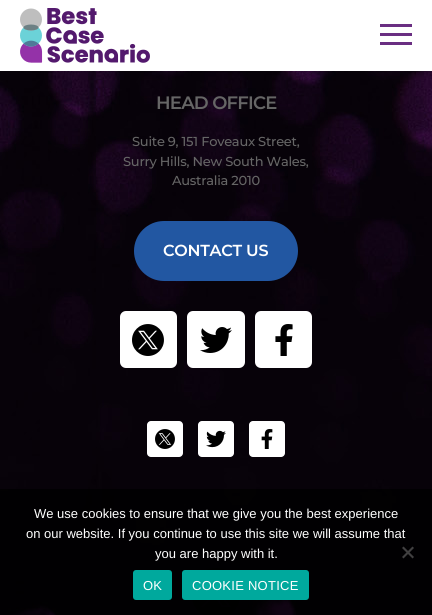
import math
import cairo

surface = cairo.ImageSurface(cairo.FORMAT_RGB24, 432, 615)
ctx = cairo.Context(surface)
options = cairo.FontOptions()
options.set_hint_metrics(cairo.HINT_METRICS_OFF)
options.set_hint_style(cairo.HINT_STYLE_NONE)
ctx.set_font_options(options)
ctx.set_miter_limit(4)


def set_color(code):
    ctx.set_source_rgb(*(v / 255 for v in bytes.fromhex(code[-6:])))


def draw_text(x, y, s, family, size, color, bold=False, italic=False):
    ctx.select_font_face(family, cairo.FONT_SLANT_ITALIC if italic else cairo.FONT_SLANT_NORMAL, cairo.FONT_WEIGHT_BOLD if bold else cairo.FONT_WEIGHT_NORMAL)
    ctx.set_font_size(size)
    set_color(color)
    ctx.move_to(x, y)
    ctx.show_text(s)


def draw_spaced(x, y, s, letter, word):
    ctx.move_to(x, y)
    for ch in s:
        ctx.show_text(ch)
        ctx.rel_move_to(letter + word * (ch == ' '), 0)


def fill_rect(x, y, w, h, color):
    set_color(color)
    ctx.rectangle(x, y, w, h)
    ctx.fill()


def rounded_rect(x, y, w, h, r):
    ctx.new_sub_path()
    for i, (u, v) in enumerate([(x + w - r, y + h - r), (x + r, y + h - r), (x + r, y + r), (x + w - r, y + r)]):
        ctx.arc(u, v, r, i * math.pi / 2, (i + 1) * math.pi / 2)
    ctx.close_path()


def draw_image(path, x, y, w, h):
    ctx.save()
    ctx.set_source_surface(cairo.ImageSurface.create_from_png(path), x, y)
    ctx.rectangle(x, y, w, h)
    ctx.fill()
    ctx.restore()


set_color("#ffffff")
ctx.paint()
draw_image("assets/img1.png", 20, 8, 130, 55)
fill_rect(380, 24, 32, 3, "#6a2e82")
fill_rect(380, 33, 32, 3, "#6a2e82")
fill_rect(380, 42, 32, 3, "#6a2e82")
draw_image("assets/img2.png", 0, 71, 432, 544)
ctx.select_font_face("Montserrat SemiBold")
ctx.set_font_size(18)
set_color("#666666")
draw_spaced(156, 109, "HEAD OFFICE", -0.75, 0)
ctx.select_font_face("Montserrat Medium")
ctx.set_font_size(13)
draw_spaced(132, 146, "Suite 9, 151 Foveaux Street,", -0.25, 0)
draw_spaced(123, 166, "Surry Hills, New South Wales,", -0.25, 0)
draw_spaced(172, 185, "Australia 2010", -0.25, 0)
set_color("#2257a2")
rounded_rect(134, 221, 164, 60, 30)
ctx.fill()
ctx.select_font_face("Montserrat SemiBold")
ctx.set_font_size(16)
set_color("#ffffff")
draw_spaced(163, 256, "CONTACT US", -0.25, 0)
rounded_rect(120, 311, 57, 57, 6)
ctx.fill()
draw_image("assets/img3.png", 132, 324, 32, 32)
rounded_rect(187, 311, 58, 57, 6)
ctx.fill()
draw_image("assets/img4.png", 200, 327, 32, 26)
rounded_rect(255, 311, 57, 57, 6)
ctx.fill()
draw_image("assets/img5.png", 275, 324, 18, 32)
rounded_rect(147, 421, 36, 36, 4)
ctx.fill()
draw_image("assets/img6.png", 155, 429, 20, 20)
rounded_rect(198, 421, 36, 36, 4)
ctx.fill()
draw_image("assets/img7.png", 206, 430, 20, 18)
rounded_rect(249, 421, 36, 36, 4)
ctx.fill()
draw_image("assets/img8.png", 261, 429, 12, 20)
set_color("#000000")
ctx.new_path()
ctx.move_to(204.5, 580.5)
ctx.line_to(223, 605.5)
ctx.line_to(227.5, 605.5)
ctx.line_to(209, 580.5)
ctx.close_path()
ctx.fill()
ctx.new_path()
ctx.move_to(216, 568)
ctx.curve_to(183, 568, 183, 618, 216, 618)
ctx.curve_to(249, 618, 249, 568, 216, 568)
ctx.close_path()
ctx.move_to(222, 607)
ctx.line_to(214, 596)
ctx.line_to(203, 607)
ctx.line_to(201, 607)
ctx.line_to(213, 595)
ctx.line_to(201, 579)
ctx.line_to(210, 579)
ctx.line_to(218, 589)
ctx.line_to(227, 579)
ctx.line_to(230, 579)
ctx.line_to(219, 591)
ctx.line_to(231, 607)
ctx.close_path()
ctx.fill()
ctx.set_source_rgba(0, 0, 0, 0.8)
ctx.rectangle(0, 489, 432, 126)
ctx.fill()
draw_text(34, 518, "We use cookies to ensure that we give you the best experience", "Liberation Sans", 13, "#ffffff")
draw_text(26, 538, "on our website. If you continue to use this site we will assume that", "Liberation Sans", 13, "#ffffff")
draw_text(155, 558, "you are happy with it.", "Liberation Sans", 13, "#ffffff")
set_color("#414041")
ctx.new_path()
ctx.move_to(412.5, 546.5)
ctx.line_to(414, 548)
ctx.line_to(403.5, 558.5)
ctx.line_to(402, 557)
ctx.close_path()
ctx.fill()
ctx.new_path()
ctx.move_to(402, 548)
ctx.line_to(403.5, 546.5)
ctx.line_to(414, 557)
ctx.line_to(412.5, 558.5)
ctx.close_path()
ctx.fill()
set_color("#00a99d")
rounded_rect(133, 570, 39, 30, 3)
ctx.fill()
set_color("#ffffff")
draw_spaced(143, 590, "OK", 0.25, 0)
set_color("#00a99d")
rounded_rect(182, 570, 127, 30, 3)
ctx.fill()
set_color("#ffffff")
draw_spaced(192, 590, "COOKIE NOTICE", 0.25, 0)
surface.write_to_png("output.png")
